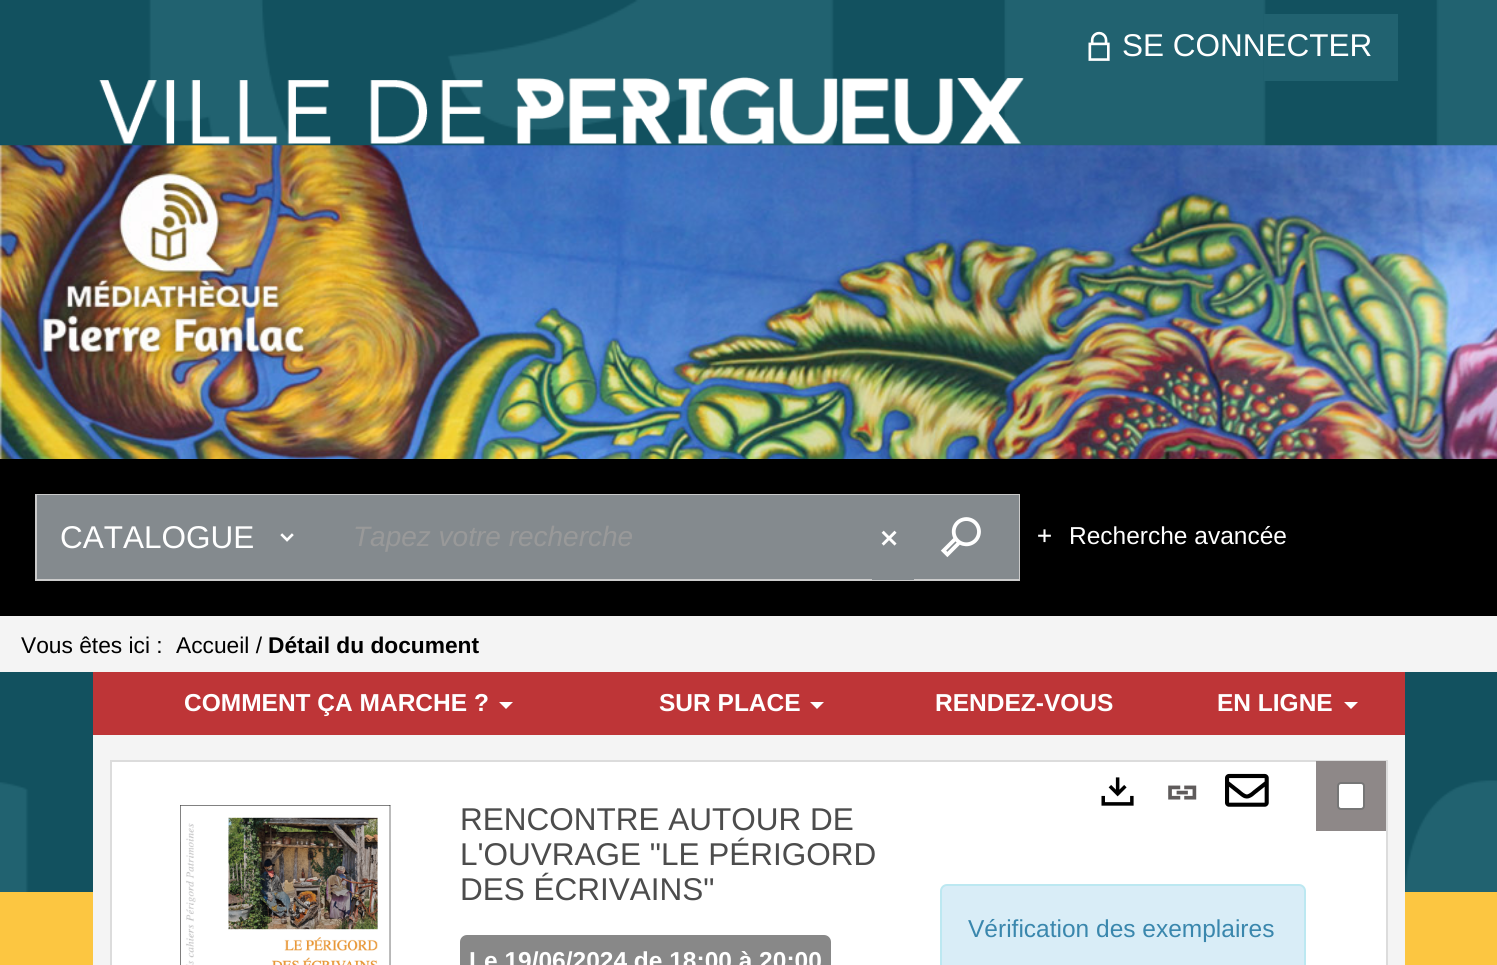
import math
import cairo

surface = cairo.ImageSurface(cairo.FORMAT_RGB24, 1497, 965)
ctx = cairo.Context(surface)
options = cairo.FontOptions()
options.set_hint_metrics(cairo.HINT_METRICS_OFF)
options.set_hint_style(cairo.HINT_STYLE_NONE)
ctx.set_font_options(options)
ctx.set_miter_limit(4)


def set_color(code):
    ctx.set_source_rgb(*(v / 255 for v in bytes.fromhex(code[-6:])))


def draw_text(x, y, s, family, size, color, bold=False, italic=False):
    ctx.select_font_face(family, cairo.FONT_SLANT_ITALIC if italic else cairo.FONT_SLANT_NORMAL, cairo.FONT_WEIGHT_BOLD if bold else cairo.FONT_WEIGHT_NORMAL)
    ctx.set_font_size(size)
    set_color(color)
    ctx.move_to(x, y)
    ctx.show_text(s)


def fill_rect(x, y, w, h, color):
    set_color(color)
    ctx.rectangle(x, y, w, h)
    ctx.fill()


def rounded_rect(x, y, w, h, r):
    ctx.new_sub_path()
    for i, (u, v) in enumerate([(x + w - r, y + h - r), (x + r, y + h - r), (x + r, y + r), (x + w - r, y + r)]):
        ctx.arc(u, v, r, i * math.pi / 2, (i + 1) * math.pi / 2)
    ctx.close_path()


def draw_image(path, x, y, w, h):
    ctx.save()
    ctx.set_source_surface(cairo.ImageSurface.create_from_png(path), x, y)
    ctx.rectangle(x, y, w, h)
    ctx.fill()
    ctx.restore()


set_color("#ffffff")
ctx.paint()
draw_image("assets/img1.png", 0, 0, 1497, 892)
fill_rect(0, 892, 1497, 73, "#fcc641")
draw_image("assets/img2.png", 0, 145, 1497, 314)
fill_rect(1264, 14, 134, 67, "#216270")
draw_image("assets/img3.png", 1088, 31, 22, 30)
draw_text(1122, 56, "SE CONNECTER", "Liberation Sans", 31.5, "#ffffff")
draw_image("assets/img4.png", 99, 77, 925, 67)
fill_rect(0, 459, 1497, 157, "#000000")
ctx.rectangle(36, 495, 983, 85)
set_color("#cbcbcb")
ctx.stroke()
fill_rect(37, 495, 982, 84, "#848a8e")
draw_text(60, 548, "CATALOGUE", "Liberation Sans", 31.5, "#ffffff")
draw_image("assets/img5.png", 280, 533, 14, 9)
draw_text(353, 546, "Tapez votre recherche", "Liberation Sans", 28, "#999999", italic=True)
fill_rect(872, 579, 42, 1, "#848a8e")
draw_image("assets/img6.png", 881, 530, 16, 16)
draw_image("assets/img7.png", 940, 517, 41, 41)
draw_image("assets/img8.png", 1038, 529, 13, 14)
draw_text(1069, 544, "Recherche avancée", "Liberation Sans", 24.5, "#ffffff")
fill_rect(0, 616, 1497, 56, "#f4f4f4")
draw_text(21, 653, "Vous êtes ici :", "Liberation Sans", 22.75, "#000000")
draw_text(176, 653, "Accueil /", "Liberation Sans", 22.75, "#000000")
draw_text(268, 653, "Détail du document", "Liberation Sans", 22.75, "#000000", bold=True)
fill_rect(93, 672, 1312, 63, "#be3537")
draw_text(184, 711, "COMMENT ÇA MARCHE ?", "Liberation Sans", 24.5, "#ffffff", bold=True)
ctx.new_path()
ctx.move_to(499, 702)
ctx.line_to(513, 702)
ctx.line_to(506, 709)
ctx.close_path()
ctx.fill()
draw_text(659, 711, "SUR PLACE", "Liberation Sans", 24.5, "#ffffff", bold=True)
ctx.new_path()
ctx.move_to(810, 702)
ctx.line_to(824, 702)
ctx.line_to(817, 709)
ctx.close_path()
ctx.fill()
draw_text(935, 711, "RENDEZ-VOUS", "Liberation Sans", 24.5, "#ffffff", bold=True)
draw_text(1217, 711, "EN LIGNE", "Liberation Sans", 24.5, "#ffffff", bold=True)
ctx.new_path()
ctx.move_to(1344, 702)
ctx.line_to(1358, 702)
ctx.line_to(1351, 709)
ctx.close_path()
ctx.fill()
fill_rect(93, 735, 1312, 230, "#f4f4f4")
set_color("#ffffff")
ctx.rectangle(111, 761, 1276, 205)
ctx.fill_preserve()
set_color("#dcdcdc")
ctx.stroke()
draw_image("assets/img9.png", 180, 805, 211, 160)
draw_image("assets/img10.png", 180, 805, 211, 160)
draw_text(460, 830, "RENCONTRE AUTOUR DE", "Liberation Sans", 31.5, "#4c4c4c")
draw_text(460, 865, "L'OUVRAGE \"LE PÉRIGORD", "Liberation Sans", 31.5, "#4c4c4c")
draw_text(460, 900, "DES ÉCRIVAINS\"", "Liberation Sans", 31.5, "#4c4c4c")
set_color("#888888")
rounded_rect(460, 935, 371, 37, 7)
ctx.fill()
draw_text(469, 969, "Le 19/06/2024 de 18:00 à 20:00", "Liberation Sans", 24.5, "#ffffff", bold=True)
draw_image("assets/img11.png", 1101, 777, 33, 29)
draw_image("assets/img12.png", 1168, 785, 29, 15)
draw_image("assets/img13.png", 1225, 773, 44, 34)
fill_rect(1316, 761, 70, 70, "#8e8888")
set_color("#ffffff")
rounded_rect(1338, 783, 26, 26, 3)
ctx.fill_preserve()
set_color("#767676")
ctx.stroke()
set_color("#d9edf7")
rounded_rect(941, 885, 364, 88, 6)
ctx.fill_preserve()
set_color("#bce8f1")
ctx.stroke()
draw_text(968, 937, "Vérification des exemplaires", "Liberation Sans", 24.5, "#3a87ad")
surface.write_to_png("output.png")
